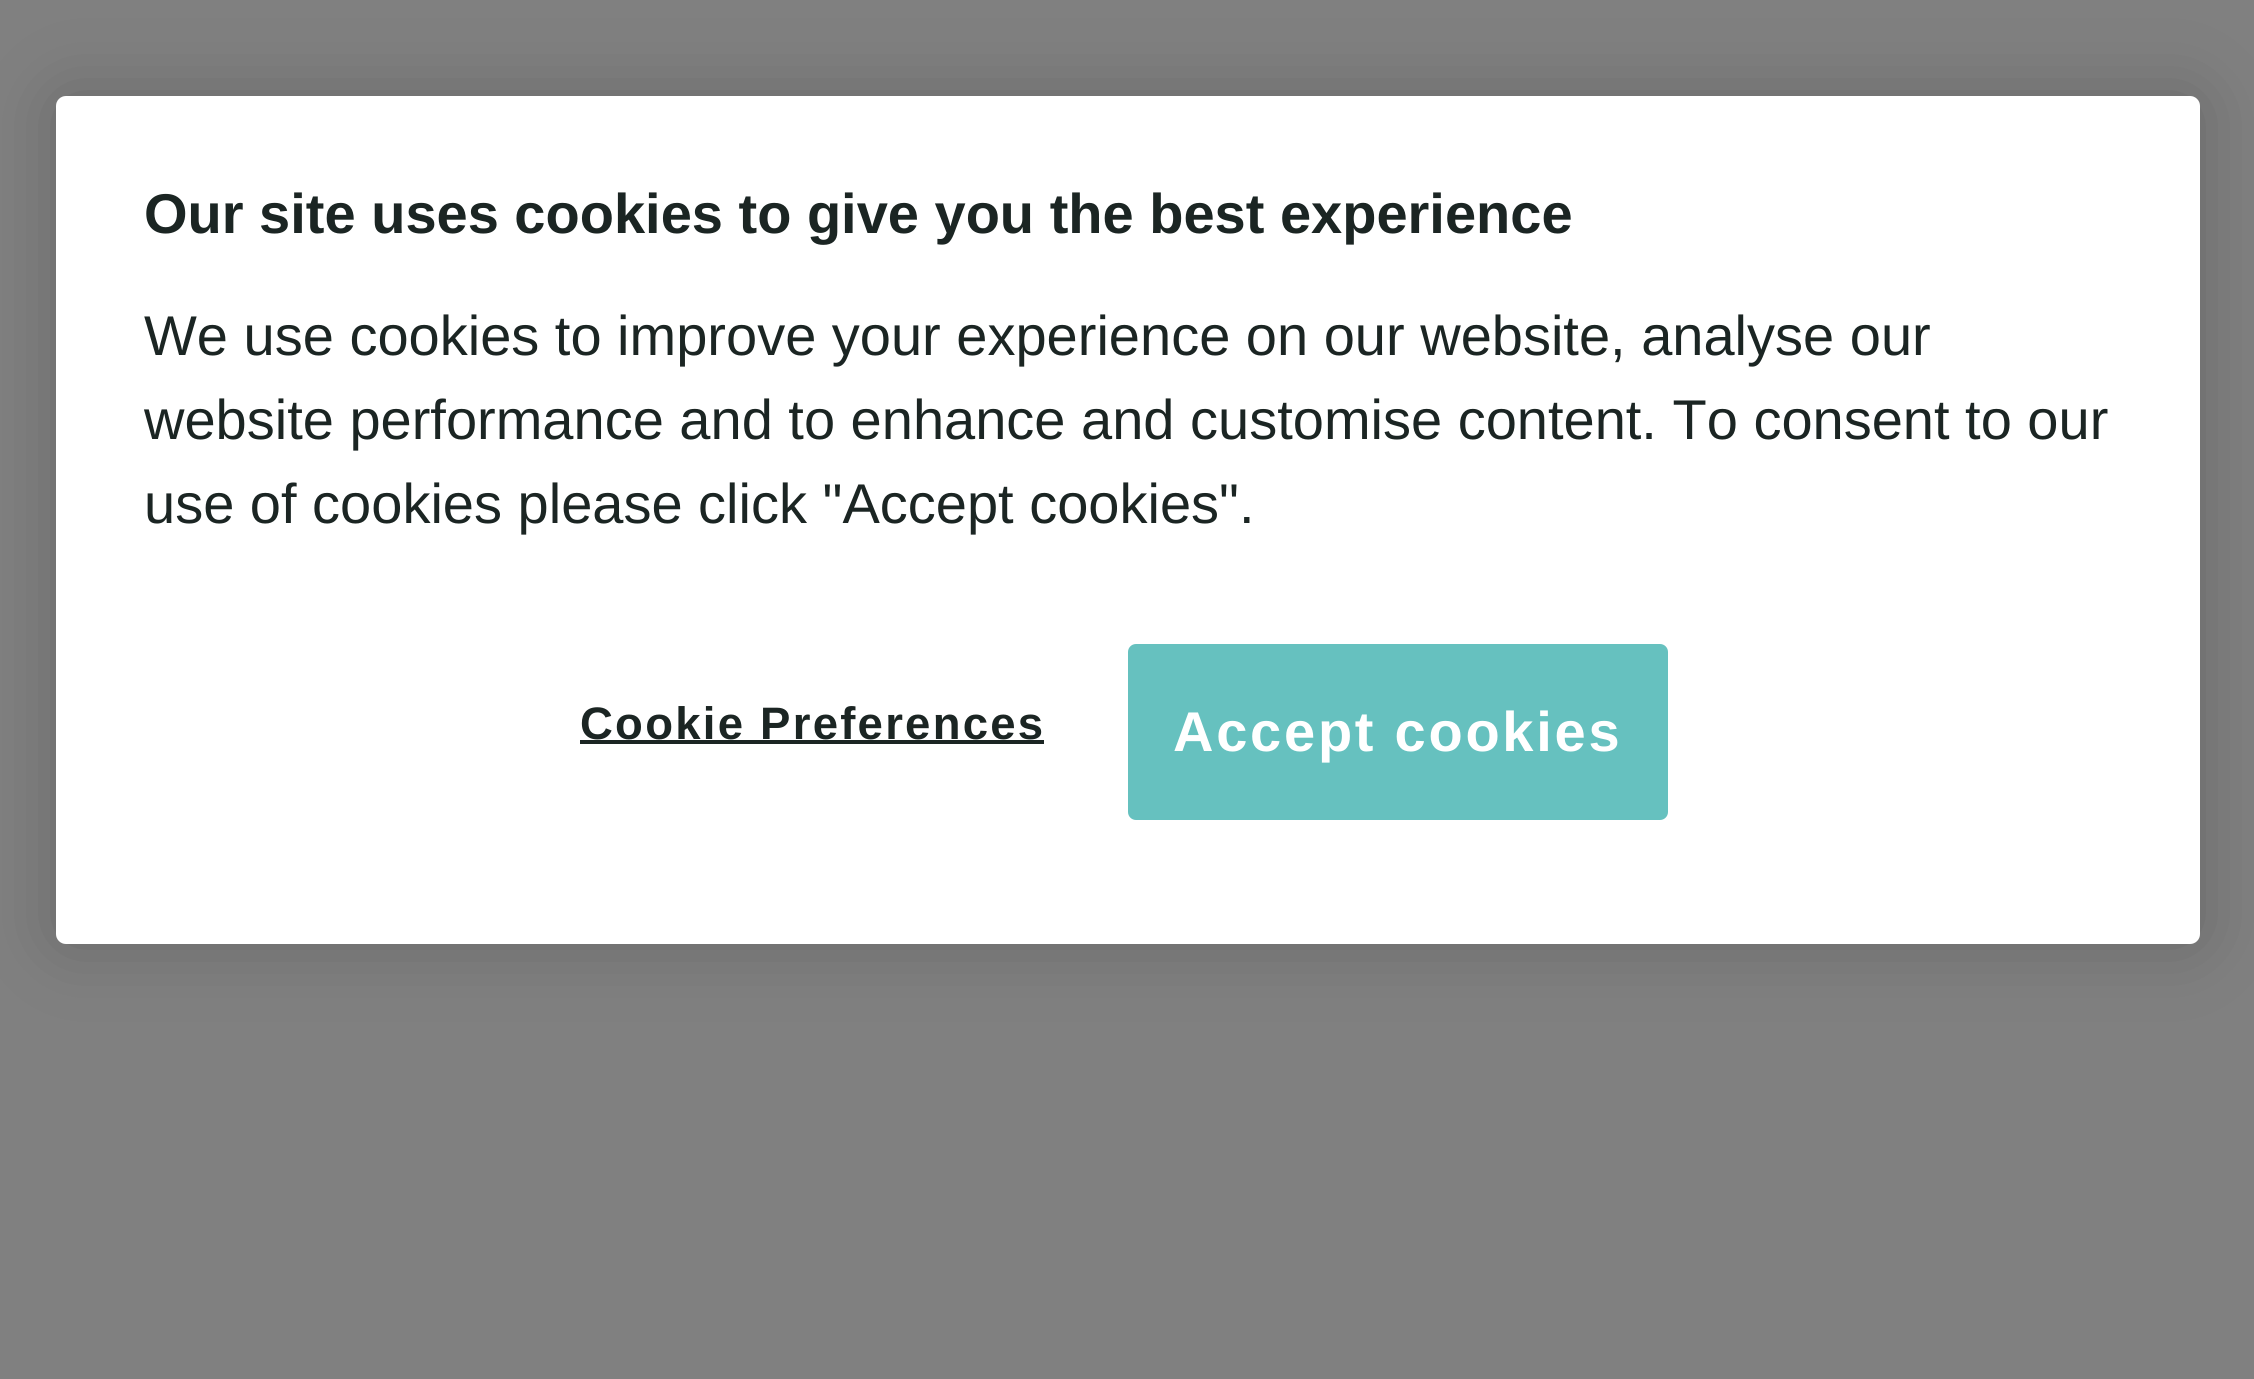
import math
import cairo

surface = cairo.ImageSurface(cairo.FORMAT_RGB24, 2254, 1379)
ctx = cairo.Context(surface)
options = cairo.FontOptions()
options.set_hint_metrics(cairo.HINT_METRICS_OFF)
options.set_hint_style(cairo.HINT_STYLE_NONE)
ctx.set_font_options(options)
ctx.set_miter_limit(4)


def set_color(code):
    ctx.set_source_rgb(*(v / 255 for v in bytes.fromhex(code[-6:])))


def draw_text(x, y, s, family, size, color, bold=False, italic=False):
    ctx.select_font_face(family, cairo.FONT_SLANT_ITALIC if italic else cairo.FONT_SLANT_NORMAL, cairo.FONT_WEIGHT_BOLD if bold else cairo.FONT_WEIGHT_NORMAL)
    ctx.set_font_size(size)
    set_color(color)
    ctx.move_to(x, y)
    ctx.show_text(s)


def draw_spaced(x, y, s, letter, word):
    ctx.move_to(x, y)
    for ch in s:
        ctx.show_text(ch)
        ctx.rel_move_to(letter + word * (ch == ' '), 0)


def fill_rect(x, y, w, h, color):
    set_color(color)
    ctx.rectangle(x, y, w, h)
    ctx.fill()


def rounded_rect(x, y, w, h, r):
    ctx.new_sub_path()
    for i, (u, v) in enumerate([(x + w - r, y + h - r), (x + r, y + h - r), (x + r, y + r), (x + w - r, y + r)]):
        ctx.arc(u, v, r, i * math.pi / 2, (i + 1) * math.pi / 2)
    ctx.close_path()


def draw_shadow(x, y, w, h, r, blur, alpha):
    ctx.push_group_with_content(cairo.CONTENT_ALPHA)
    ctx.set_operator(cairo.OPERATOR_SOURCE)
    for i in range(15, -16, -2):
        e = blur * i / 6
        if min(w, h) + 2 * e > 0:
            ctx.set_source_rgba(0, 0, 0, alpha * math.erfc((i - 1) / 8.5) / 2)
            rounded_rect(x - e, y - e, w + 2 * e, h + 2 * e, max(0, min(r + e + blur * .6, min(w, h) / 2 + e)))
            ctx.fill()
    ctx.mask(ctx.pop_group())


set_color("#808080")
ctx.paint()
ctx.save()
ctx.set_fill_rule(cairo.FILL_RULE_EVEN_ODD)
ctx.new_path()
ctx.move_to(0, 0)
ctx.line_to(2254, 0)
ctx.line_to(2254, 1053)
ctx.line_to(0, 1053)
ctx.close_path()
ctx.move_to(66, 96)
ctx.line_to(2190, 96)
ctx.curve_to(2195.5, 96, 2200, 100.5, 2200, 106)
ctx.line_to(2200, 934)
ctx.curve_to(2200, 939.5, 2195.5, 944, 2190, 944)
ctx.line_to(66, 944)
ctx.curve_to(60.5, 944, 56, 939.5, 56, 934)
ctx.line_to(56, 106)
ctx.curve_to(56, 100.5, 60.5, 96, 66, 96)
ctx.close_path()
ctx.clip()
set_color("#000000")
draw_shadow(56, 96, 2144, 848, 10, 36, 0.2)
ctx.restore()
set_color("#ffffff")
rounded_rect(56, 96, 2144, 848, 10)
ctx.fill()
draw_text(144, 233, "Our site uses cookies to give you the best experience", "Liberation Sans", 56, "#1b2523", bold=True)
draw_text(144, 355, "We use cookies to improve your experience on our website, analyse our", "Liberation Sans", 56, "#1b2523")
draw_text(144, 439, "website performance and to enhance and customise content. To consent to our", "Liberation Sans", 56, "#1b2523")
draw_text(144, 523, "use of cookies please click \"Accept cookies\".", "Liberation Sans", 56, "#1b2523")
ctx.select_font_face("Liberation Sans", cairo.FONT_SLANT_NORMAL, cairo.FONT_WEIGHT_BOLD)
ctx.set_font_size(45.5)
draw_spaced(580, 739, "Cookie Preferences", 2.25, 0)
fill_rect(580, 740, 464, 4, "#1b2523")
set_color("#66c1bf")
rounded_rect(1128, 644, 540, 176, 8)
ctx.fill()
ctx.set_font_size(56)
set_color("#ffffff")
draw_spaced(1173, 751, "Accept cookies", 2.75, 0)
surface.write_to_png("output.png")
